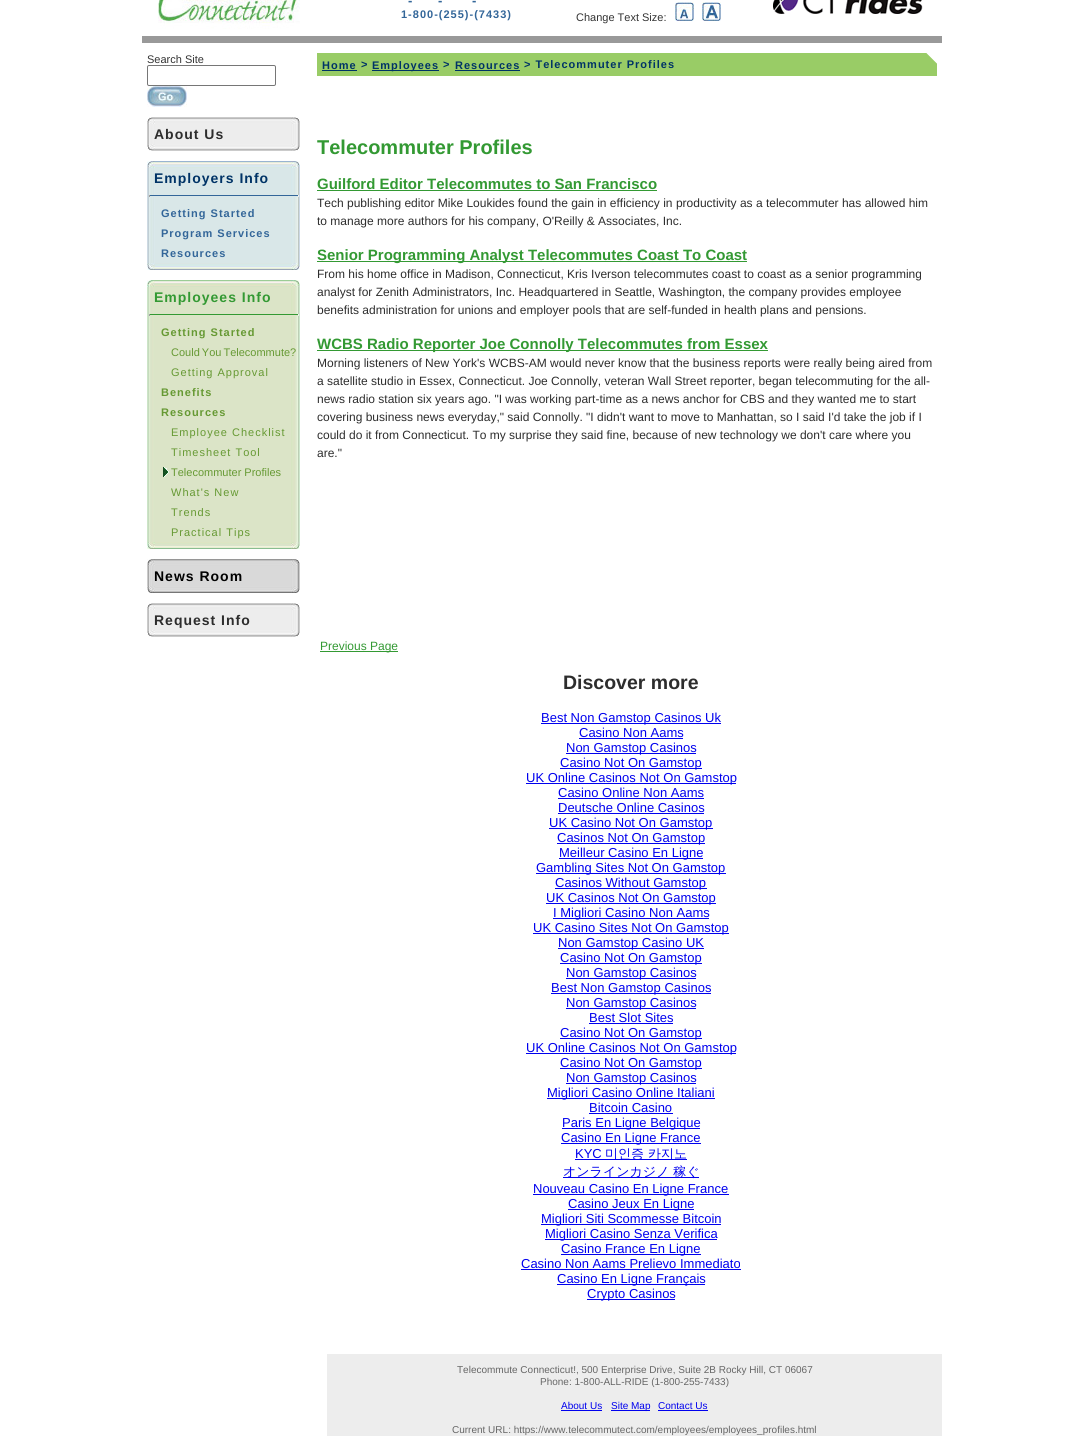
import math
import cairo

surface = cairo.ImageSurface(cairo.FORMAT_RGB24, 1084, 1436)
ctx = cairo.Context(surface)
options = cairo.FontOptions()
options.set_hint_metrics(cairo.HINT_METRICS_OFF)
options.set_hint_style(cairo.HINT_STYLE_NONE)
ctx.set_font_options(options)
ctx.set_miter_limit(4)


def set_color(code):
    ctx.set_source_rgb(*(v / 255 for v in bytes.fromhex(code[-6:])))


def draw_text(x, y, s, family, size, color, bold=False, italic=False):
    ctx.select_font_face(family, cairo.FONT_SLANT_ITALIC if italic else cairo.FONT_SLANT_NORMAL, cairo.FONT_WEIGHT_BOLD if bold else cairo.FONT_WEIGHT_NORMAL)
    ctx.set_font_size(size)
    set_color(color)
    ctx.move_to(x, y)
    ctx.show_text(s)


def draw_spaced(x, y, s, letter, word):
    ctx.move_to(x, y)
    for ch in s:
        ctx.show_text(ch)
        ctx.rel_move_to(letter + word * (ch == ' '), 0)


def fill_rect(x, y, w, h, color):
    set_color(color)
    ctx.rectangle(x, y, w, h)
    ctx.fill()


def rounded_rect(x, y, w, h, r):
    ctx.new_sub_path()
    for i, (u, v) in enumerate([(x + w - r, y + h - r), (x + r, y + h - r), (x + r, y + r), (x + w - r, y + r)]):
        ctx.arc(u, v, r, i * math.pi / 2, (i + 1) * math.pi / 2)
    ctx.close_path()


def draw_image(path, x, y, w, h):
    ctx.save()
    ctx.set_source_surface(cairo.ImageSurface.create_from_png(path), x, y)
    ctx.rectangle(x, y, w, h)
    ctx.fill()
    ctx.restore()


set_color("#ffffff")
ctx.paint()
draw_image("assets/img1.png", 158, 0, 142, 33)
ctx.select_font_face("Liberation Sans", cairo.FONT_SLANT_NORMAL, cairo.FONT_WEIGHT_BOLD)
ctx.set_font_size(13)
set_color("#336699")
draw_spaced(408, 5, "-", 1, 0)
draw_spaced(438, 5, "-", 1, 0)
draw_spaced(472, 5, "-", 1, 0)
ctx.set_font_size(11)
draw_spaced(401, 18, "1-800-(255)-(7433)", 1, 0)
draw_image("assets/img2.png", 773, 0, 150, 14)
draw_text(576, 21, "Change Text Size:", "Liberation Sans", 11, "#333333")
draw_image("assets/img3.png", 675, 2, 19, 19)
draw_image("assets/img4.png", 702, 2, 19, 19)
fill_rect(142, 36, 800, 7, "#999999")
draw_text(147, 63, "Search Site", "Liberation Sans", 11, "#333333")
rounded_rect(147.5, 65.5, 128, 20, 1.5)
set_color("#767676")
ctx.set_line_width(1)
ctx.stroke()
draw_image("assets/img5.png", 147, 86, 40, 21)
draw_image("assets/img6.png", 147, 117, 153, 7)
draw_image("assets/img7.png", 147, 124, 153, 20)
ctx.select_font_face("Liberation Sans", cairo.FONT_SLANT_NORMAL, cairo.FONT_WEIGHT_BOLD)
ctx.set_font_size(14)
set_color("#2d2d2d")
draw_spaced(154, 139, "About Us", 1, 0)
draw_image("assets/img8.png", 147, 144, 153, 7)
draw_image("assets/img9.png", 147, 161, 153, 7)
draw_image("assets/img10.png", 147, 168, 153, 95)
fill_rect(154, 170, 1, 16, "#d9e7e8")
set_color("#003366")
draw_spaced(154, 183, "Employers Info", 1, 0)
fill_rect(149, 196, 150, 1, "#d9e7e8")
fill_rect(149, 195, 150, 1, "#336699")
fill_rect(298, 195, 1, 2, "#eeeeee")
fill_rect(149, 195, 1, 2, "#9f9f9f")
ctx.set_font_size(11)
set_color("#336699")
draw_spaced(161, 217, "Getting Started", 1, 0)
draw_spaced(161, 237, "Program Services", 1, 0)
draw_spaced(161, 257, "Resources", 1, 0)
draw_image("assets/img11.png", 147, 263, 153, 7)
draw_image("assets/img12.png", 147, 280, 153, 7)
draw_image("assets/img13.png", 147, 287, 153, 255)
ctx.set_font_size(14)
set_color("#339933")
draw_spaced(154, 302, "Employees Info", 1, 0)
fill_rect(149, 315, 150, 1, "#dbe5c7")
fill_rect(149, 314, 150, 1, "#339933")
fill_rect(298, 314, 1, 2, "#eeeeee")
fill_rect(149, 314, 1, 2, "#9f9f9f")
ctx.set_font_size(11)
set_color("#669933")
draw_spaced(161, 336, "Getting Started", 1, 0)
ctx.select_font_face("Liberation Sans")
draw_spaced(171, 356, "Could You Telecommute?", 0, -1)
draw_spaced(171, 376, "Getting Approval", 1, 0)
ctx.select_font_face("Liberation Sans", cairo.FONT_SLANT_NORMAL, cairo.FONT_WEIGHT_BOLD)
draw_spaced(161, 396, "Benefits", 1, 0)
draw_spaced(161, 416, "Resources", 1, 0)
ctx.select_font_face("Liberation Sans")
draw_spaced(171, 436, "Employee Checklist", 1, 0)
draw_spaced(171, 456, "Timesheet Tool", 1, 0)
draw_image("assets/img14.png", 163, 467, 6, 10)
draw_text(171, 476, "Telecommuter Profiles", "Liberation Sans", 11, "#669933")
draw_spaced(171, 496, "What's New", 1, 0)
draw_spaced(171, 516, "Trends", 1, 0)
draw_spaced(171, 536, "Practical Tips", 1, 0)
draw_image("assets/img15.png", 147, 542, 153, 7)
draw_image("assets/img16.png", 147, 559, 153, 7)
draw_image("assets/img17.png", 147, 566, 153, 20)
ctx.select_font_face("Liberation Sans", cairo.FONT_SLANT_NORMAL, cairo.FONT_WEIGHT_BOLD)
ctx.set_font_size(14)
set_color("#000000")
draw_spaced(154, 581, "News Room", 1, 0)
draw_image("assets/img18.png", 147, 586, 153, 7)
draw_image("assets/img6.png", 147, 603, 153, 7)
draw_image("assets/img7.png", 147, 610, 153, 20)
set_color("#2d2d2d")
draw_spaced(154, 625, "Request Info", 1, 0)
draw_image("assets/img8.png", 147, 630, 153, 7)
draw_image("assets/img19.png", 317, 53, 620, 23)
ctx.set_font_size(11)
set_color("#003366")
draw_spaced(322, 69, "Home", 1, 0)
fill_rect(322, 70, 35, 1, "#003366")
draw_spaced(361, 68, ">", 1, 0)
fill_rect(372, 70, 67, 1, "#003366")
draw_spaced(372, 69, "Employees", 1, 0)
draw_spaced(443, 68, ">", 1, 0)
draw_spaced(455, 69, "Resources", 1, 0)
fill_rect(455, 70, 65, 1, "#003366")
draw_spaced(524, 68, "> Telecommuter Profiles", 1, 0)
draw_text(317, 154, "Telecommuter Profiles", "Liberation Sans", 20, "#339933", bold=True)
draw_text(317, 189, "Guilford Editor Telecommutes to San Francisco", "Liberation Sans", 15, "#339933", bold=True)
fill_rect(317, 190, 340, 1, "#339933")
draw_text(317, 207, "Tech publishing editor Mike Loukides found the gain in efficiency in productivity as a telecommuter has allowed him", "Liberation Sans", 12, "#2d2d2d")
draw_text(317, 225, "to manage more authors for his company, O'Reilly & Associates, Inc.", "Liberation Sans", 12, "#2d2d2d")
fill_rect(317, 261, 430, 1, "#339933")
draw_text(317, 260, "Senior Programming Analyst Telecommutes Coast To Coast", "Liberation Sans", 15, "#339933", bold=True)
draw_text(317, 278, "From his home office in Madison, Connecticut, Kris Iverson telecommutes coast to coast as a senior programming", "Liberation Sans", 12, "#2d2d2d")
draw_text(317, 296, "analyst for Zenith Administrators, Inc. Headquartered in Seattle, Washington, the company provides employee", "Liberation Sans", 12, "#2d2d2d")
draw_text(317, 314, "benefits administration for unions and employer pools that are self-funded in health plans and pensions.", "Liberation Sans", 12, "#2d2d2d")
fill_rect(317, 350, 451, 1, "#339933")
draw_text(317, 349, "WCBS Radio Reporter Joe Connolly Telecommutes from Essex", "Liberation Sans", 15, "#339933", bold=True)
draw_text(317, 367, "Morning listeners of New York's WCBS-AM would never know that the business reports were really being aired from", "Liberation Sans", 12, "#2d2d2d")
draw_text(317, 385, "a satellite studio in Essex, Connecticut. Joe Connolly, veteran Wall Street reporter, began telecommuting for the all-", "Liberation Sans", 12, "#2d2d2d")
draw_text(317, 403, "news radio station six years ago. \"I was working part-time as a news anchor for CBS and they wanted me to start", "Liberation Sans", 12, "#2d2d2d")
draw_text(317, 421, "covering business news everyday,\" said Connolly. \"I didn't want to move to Manhattan, so I said I'd take the job if I", "Liberation Sans", 12, "#2d2d2d")
draw_text(317, 439, "could do it from Connecticut. To my surprise they said fine, because of new technology we don't care where you", "Liberation Sans", 12, "#2d2d2d")
draw_text(317, 457, "are.\"", "Liberation Sans", 12, "#2d2d2d")
fill_rect(320, 651, 78, 1, "#339933")
draw_text(320, 650, "Previous Page", "Liberation Sans", 12, "#339933")
draw_text(563, 689, "Discover more", "Liberation Sans", 19.5, "#2d2d2d", bold=True)
fill_rect(541, 723, 180, 1, "#0000ee")
draw_text(541, 722, "Best Non Gamstop Casinos Uk", "Liberation Sans", 13, "#0000ee")
draw_text(579, 737, "Casino Non Aams", "Liberation Sans", 13, "#0000ee")
fill_rect(579, 738, 104, 1, "#0000ee")
fill_rect(566, 753, 130, 1, "#0000ee")
draw_text(566, 752, "Non Gamstop Casinos", "Liberation Sans", 13, "#0000ee")
fill_rect(560, 768, 142, 1, "#0000ee")
draw_text(560, 767, "Casino Not On Gamstop", "Liberation Sans", 13, "#0000ee")
fill_rect(526, 783, 210, 1, "#0000ee")
draw_text(526, 782, "UK Online Casinos Not On Gamstop", "Liberation Sans", 13, "#0000ee")
draw_text(558, 797, "Casino Online Non Aams", "Liberation Sans", 13, "#0000ee")
fill_rect(558, 798, 146, 1, "#0000ee")
draw_text(558, 812, "Deutsche Online Casinos", "Liberation Sans", 13, "#0000ee")
fill_rect(558, 813, 146, 1, "#0000ee")
fill_rect(549, 828, 164, 1, "#0000ee")
draw_text(549, 827, "UK Casino Not On Gamstop", "Liberation Sans", 13, "#0000ee")
fill_rect(557, 843, 148, 1, "#0000ee")
draw_text(557, 842, "Casinos Not On Gamstop", "Liberation Sans", 13, "#0000ee")
fill_rect(559, 858, 144, 1, "#0000ee")
draw_text(559, 857, "Meilleur Casino En Ligne", "Liberation Sans", 13, "#0000ee")
fill_rect(536, 873, 190, 1, "#0000ee")
draw_text(536, 872, "Gambling Sites Not On Gamstop", "Liberation Sans", 13, "#0000ee")
fill_rect(555, 888, 152, 1, "#0000ee")
draw_text(555, 887, "Casinos Without Gamstop", "Liberation Sans", 13, "#0000ee")
fill_rect(546, 903, 170, 1, "#0000ee")
draw_text(546, 902, "UK Casinos Not On Gamstop", "Liberation Sans", 13, "#0000ee")
fill_rect(553, 918, 156, 1, "#0000ee")
draw_text(553, 917, "I Migliori Casino Non Aams", "Liberation Sans", 13, "#0000ee")
fill_rect(533, 933, 196, 1, "#0000ee")
draw_text(533, 932, "UK Casino Sites Not On Gamstop", "Liberation Sans", 13, "#0000ee")
fill_rect(558, 948, 146, 1, "#0000ee")
draw_text(558, 947, "Non Gamstop Casino UK", "Liberation Sans", 13, "#0000ee")
fill_rect(560, 963, 142, 1, "#0000ee")
draw_text(560, 962, "Casino Not On Gamstop", "Liberation Sans", 13, "#0000ee")
fill_rect(566, 978, 130, 1, "#0000ee")
draw_text(566, 977, "Non Gamstop Casinos", "Liberation Sans", 13, "#0000ee")
fill_rect(551, 993, 160, 1, "#0000ee")
draw_text(551, 992, "Best Non Gamstop Casinos", "Liberation Sans", 13, "#0000ee")
fill_rect(566, 1008, 130, 1, "#0000ee")
draw_text(566, 1007, "Non Gamstop Casinos", "Liberation Sans", 13, "#0000ee")
draw_text(589, 1022, "Best Slot Sites", "Liberation Sans", 13, "#0000ee")
fill_rect(589, 1023, 84, 1, "#0000ee")
fill_rect(560, 1038, 142, 1, "#0000ee")
draw_text(560, 1037, "Casino Not On Gamstop", "Liberation Sans", 13, "#0000ee")
fill_rect(526, 1053, 210, 1, "#0000ee")
draw_text(526, 1052, "UK Online Casinos Not On Gamstop", "Liberation Sans", 13, "#0000ee")
fill_rect(560, 1068, 142, 1, "#0000ee")
draw_text(560, 1067, "Casino Not On Gamstop", "Liberation Sans", 13, "#0000ee")
fill_rect(566, 1083, 130, 1, "#0000ee")
draw_text(566, 1082, "Non Gamstop Casinos", "Liberation Sans", 13, "#0000ee")
fill_rect(547, 1098, 168, 1, "#0000ee")
draw_text(547, 1097, "Migliori Casino Online Italiani", "Liberation Sans", 13, "#0000ee")
draw_text(589, 1112, "Bitcoin Casino", "Liberation Sans", 13, "#0000ee")
fill_rect(589, 1113, 84, 1, "#0000ee")
fill_rect(562, 1128, 138, 1, "#0000ee")
draw_text(562, 1127, "Paris En Ligne Belgique", "Liberation Sans", 13, "#0000ee")
fill_rect(561, 1143, 140, 1, "#0000ee")
draw_text(561, 1142, "Casino En Ligne France", "Liberation Sans", 13, "#0000ee")
draw_text(575, 1158, "KYC", "Liberation Sans", 13, "#0000ee")
fill_rect(575, 1159, 112, 1, "#0000ee")
draw_text(605, 1158, "미인증 카지노", "WenQuanYi Zen Hei Medium", 13, "#0000ee")
fill_rect(563, 1177, 136, 1, "#0000ee")
draw_text(563, 1176, "オンラインカジノ 稼ぐ", "WenQuanYi Zen Hei Medium", 13, "#0000ee")
fill_rect(533, 1194, 196, 1, "#0000ee")
draw_text(533, 1193, "Nouveau Casino En Ligne France", "Liberation Sans", 13, "#0000ee")
fill_rect(568, 1209, 126, 1, "#0000ee")
draw_text(568, 1208, "Casino Jeux En Ligne", "Liberation Sans", 13, "#0000ee")
fill_rect(541, 1224, 180, 1, "#0000ee")
draw_text(541, 1223, "Migliori Siti Scommesse Bitcoin", "Liberation Sans", 13, "#0000ee")
fill_rect(545, 1239, 172, 1, "#0000ee")
draw_text(545, 1238, "Migliori Casino Senza Verifica", "Liberation Sans", 13, "#0000ee")
fill_rect(561, 1254, 140, 1, "#0000ee")
draw_text(561, 1253, "Casino France En Ligne", "Liberation Sans", 13, "#0000ee")
draw_text(521, 1268, "Casino Non Aams Prelievo Immediato", "Liberation Sans", 13, "#0000ee")
fill_rect(521, 1269, 220, 1, "#0000ee")
fill_rect(557, 1284, 148, 1, "#0000ee")
draw_text(557, 1283, "Casino En Ligne Français", "Liberation Sans", 13, "#0000ee")
fill_rect(587, 1299, 88, 1, "#0000ee")
draw_text(587, 1298, "Crypto Casinos", "Liberation Sans", 13, "#0000ee")
fill_rect(327, 1354, 615, 82, "#ededed")
draw_text(457, 1373, "Telecommute Connecticut!, 500 Enterprise Drive, Suite 2B Rocky Hill, CT 06067", "Liberation Sans", 10, "#666666")
draw_text(540, 1385, "Phone: 1-800-ALL-RIDE (1-800-255-7433)", "Liberation Sans", 10, "#666666")
draw_text(561, 1409, "About Us", "Liberation Sans", 10, "#0000ee")
fill_rect(561, 1410, 41, 1, "#0000ee")
fill_rect(611, 1410, 39, 1, "#0000ee")
draw_text(611, 1409, "Site Map", "Liberation Sans", 10, "#0000ee")
draw_text(658, 1409, "Contact Us", "Liberation Sans", 10, "#0000ee")
fill_rect(658, 1410, 50, 1, "#0000ee")
draw_text(452, 1433, "Current URL: https://www.telecommutect.com/employees/employees_profiles.html", "Liberation Sans", 10, "#666666")
surface.write_to_png("output.png")
